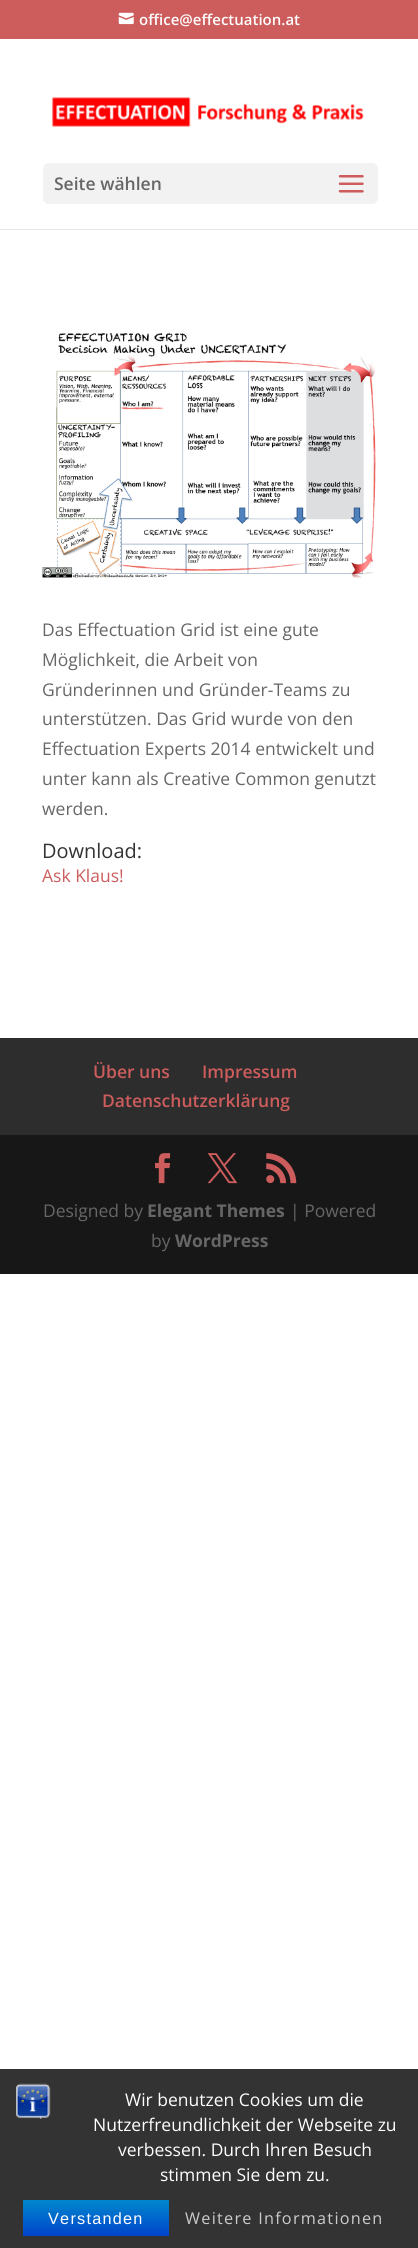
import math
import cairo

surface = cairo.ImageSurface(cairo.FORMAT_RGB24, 418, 2248)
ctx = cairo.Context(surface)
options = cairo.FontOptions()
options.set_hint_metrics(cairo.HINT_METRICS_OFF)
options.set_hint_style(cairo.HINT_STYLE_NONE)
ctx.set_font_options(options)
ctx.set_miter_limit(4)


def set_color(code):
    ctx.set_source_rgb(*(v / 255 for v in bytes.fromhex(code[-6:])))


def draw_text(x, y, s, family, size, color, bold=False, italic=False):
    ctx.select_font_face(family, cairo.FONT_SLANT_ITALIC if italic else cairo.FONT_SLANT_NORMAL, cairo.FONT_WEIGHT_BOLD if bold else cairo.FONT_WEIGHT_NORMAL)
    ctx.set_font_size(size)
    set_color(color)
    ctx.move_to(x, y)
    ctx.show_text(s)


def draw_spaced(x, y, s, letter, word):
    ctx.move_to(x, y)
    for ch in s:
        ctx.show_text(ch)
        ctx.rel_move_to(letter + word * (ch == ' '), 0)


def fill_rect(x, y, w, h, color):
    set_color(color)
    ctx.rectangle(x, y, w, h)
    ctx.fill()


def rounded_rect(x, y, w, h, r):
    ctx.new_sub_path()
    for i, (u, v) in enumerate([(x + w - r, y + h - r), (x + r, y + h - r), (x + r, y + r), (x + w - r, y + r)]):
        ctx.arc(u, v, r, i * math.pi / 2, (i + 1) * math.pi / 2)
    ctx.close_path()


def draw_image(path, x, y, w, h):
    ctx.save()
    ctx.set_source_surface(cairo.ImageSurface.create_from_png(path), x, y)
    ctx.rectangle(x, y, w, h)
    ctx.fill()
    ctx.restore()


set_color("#ffffff")
ctx.paint()
fill_rect(0, 0, 418, 39, "#cd5c5c")
draw_image("assets/img1.png", 118, 12, 16, 13)
draw_text(139, 25, "office@effectuation.at", "Open Sans SemiBold", 15, "#ffffff")
set_color("#e6e6e6")
ctx.new_path()
ctx.move_to(0, 229)
ctx.line_to(0, 230)
ctx.line_to(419, 230)
ctx.line_to(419, 40)
ctx.line_to(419, 229)
ctx.close_path()
ctx.fill()
draw_image("assets/img2.png", 52, 97, 312, 30)
set_color("#f2f2f2")
rounded_rect(43, 163, 335, 41, 6)
ctx.fill()
draw_text(54, 190, "Seite wählen", "Open Sans SemiBold", 17.5, "#666666")
draw_image("assets/img3.png", 338, 175, 26, 18)
draw_image("assets/img4.png", 42, 333, 334, 245)
draw_text(42, 636, "Das Effectuation Grid ist eine gute", "Open Sans", 17.5, "#666666")
draw_text(42, 666, "Möglichkeit, die Arbeit von", "Open Sans", 17.5, "#666666")
draw_text(42, 696, "Gründerinnen und Gründer-Teams zu", "Open Sans", 17.5, "#666666")
draw_text(42, 725, "unterstützen. Das Grid wurde von den", "Open Sans", 17.5, "#666666")
draw_text(42, 755, "Effectuation Experts 2014 entwickelt und", "Open Sans", 17.5, "#666666")
draw_text(42, 785, "unter kann als Creative Common genutzt", "Open Sans", 17.5, "#666666")
draw_text(42, 815, "werden.", "Open Sans", 17.5, "#666666")
draw_text(42, 858, "Download:", "Open Sans", 20, "#333333")
draw_text(42, 882, "Ask Klaus!", "Open Sans", 17.5, "#cd5c5c")
fill_rect(0, 1038, 418, 97, "#2d2d2d")
draw_text(93, 1078, "Über uns", "Open Sans SemiBold", 17.5, "#cd5c5c")
draw_text(202, 1078, "Impressum", "Open Sans SemiBold", 17.5, "#cd5c5c")
draw_text(102, 1107, "Datenschutzerklärung", "Open Sans SemiBold", 17.5, "#cd5c5c")
fill_rect(0, 1135, 418, 139, "#171717")
draw_image("assets/img5.png", 155, 1153, 16, 31)
draw_image("assets/img6.png", 207, 1153, 31, 31)
draw_image("assets/img7.png", 266, 1153, 31, 31)
draw_text(43, 1217, "Designed by", "Open Sans", 17.5, "#666666")
draw_text(147, 1217, "Elegant Themes", "Open Sans", 17.5, "#666666", bold=True)
draw_text(290, 1217, "| Powered", "Open Sans", 17.5, "#666666")
draw_text(151, 1247, "by", "Open Sans", 17.5, "#666666")
draw_text(175, 1247, "WordPress", "Open Sans", 17.5, "#666666", bold=True)
fill_rect(0, 2069, 418, 179, "#333333")
draw_image("assets/img8.png", 16, 2083, 35, 36)
draw_text(125, 2106, "Wir benutzen Cookies um die", "Open Sans", 17.5, "#ffffff")
draw_text(93, 2131, "Nutzerfreundlichkeit der Webseite zu", "Open Sans", 17.5, "#ffffff")
draw_text(118, 2156, "verbessen. Durch Ihren Besuch", "Open Sans", 17.5, "#ffffff")
draw_text(160, 2181, "stimmen Sie dem zu.", "Open Sans", 17.5, "#ffffff")
gradient = cairo.LinearGradient(96, 2200, 96, 2236)
gradient.add_color_stop_rgba(0, 0, 0.533, 0.8, 1)
gradient.add_color_stop_rgba(1, 0, 0.267, 0.8, 1)
ctx.set_source(gradient)
ctx.rectangle(23, 2200, 146, 36)
ctx.fill()
ctx.select_font_face("Liberation Sans")
ctx.set_font_size(16.25)
set_color("#ffffff")
draw_spaced(48, 2224, "Verstanden", 1.25, 0)
ctx.select_font_face("Open Sans")
set_color("#cccccc")
draw_spaced(185, 2224, "Weitere Informationen", 1.25, 0)
surface.write_to_png("output.png")
